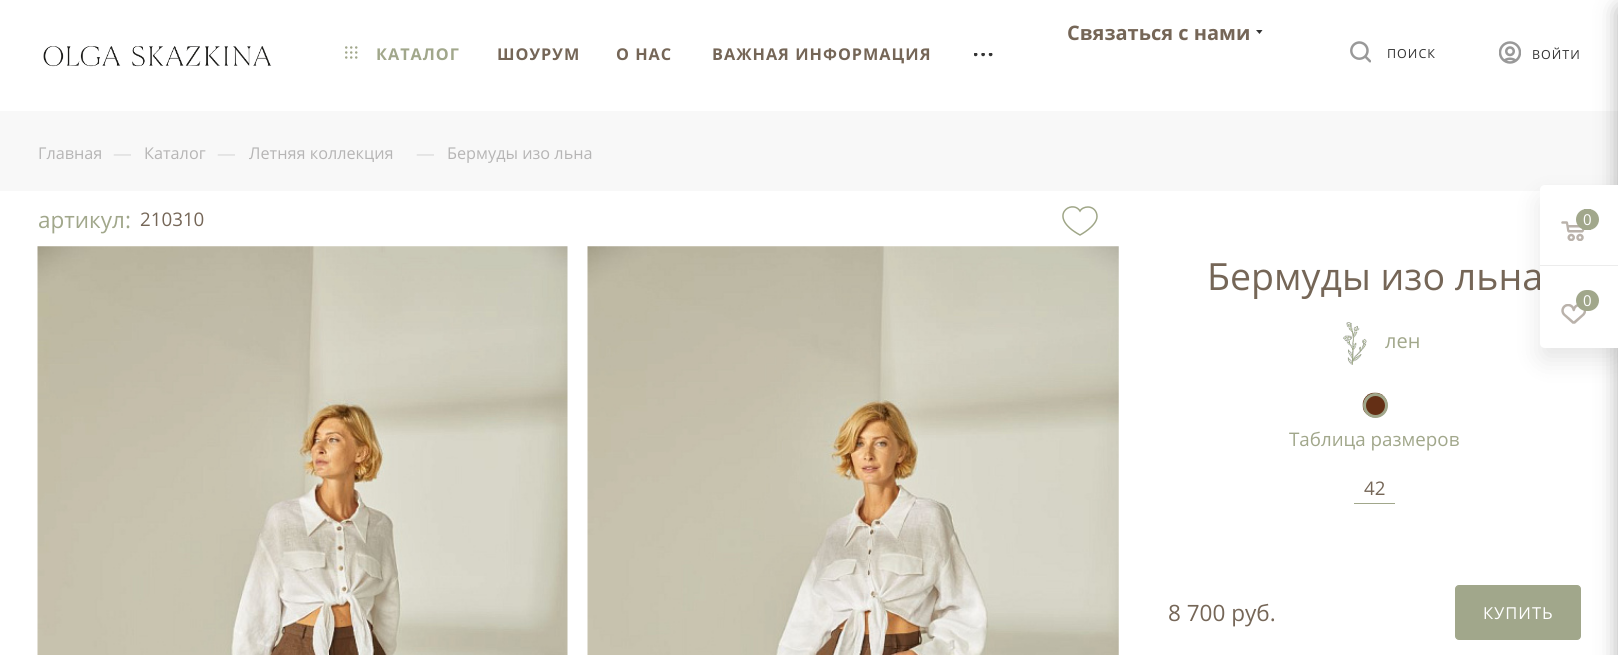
import math
import cairo

surface = cairo.ImageSurface(cairo.FORMAT_RGB24, 1618, 655)
ctx = cairo.Context(surface)
options = cairo.FontOptions()
options.set_hint_metrics(cairo.HINT_METRICS_OFF)
options.set_hint_style(cairo.HINT_STYLE_NONE)
ctx.set_font_options(options)
ctx.set_miter_limit(4)


def set_color(code):
    ctx.set_source_rgb(*(v / 255 for v in bytes.fromhex(code[-6:])))


def draw_text(x, y, s, family, size, color, bold=False, italic=False):
    ctx.select_font_face(family, cairo.FONT_SLANT_ITALIC if italic else cairo.FONT_SLANT_NORMAL, cairo.FONT_WEIGHT_BOLD if bold else cairo.FONT_WEIGHT_NORMAL)
    ctx.set_font_size(size)
    set_color(color)
    ctx.move_to(x, y)
    ctx.show_text(s)


def draw_spaced(x, y, s, letter, word):
    ctx.move_to(x, y)
    for ch in s:
        ctx.show_text(ch)
        ctx.rel_move_to(letter + word * (ch == ' '), 0)


def fill_rect(x, y, w, h, color):
    set_color(color)
    ctx.rectangle(x, y, w, h)
    ctx.fill()


def rounded_rect(x, y, w, h, r):
    ctx.new_sub_path()
    for i, (u, v) in enumerate([(x + w - r, y + h - r), (x + r, y + h - r), (x + r, y + r), (x + w - r, y + r)]):
        ctx.arc(u, v, r, i * math.pi / 2, (i + 1) * math.pi / 2)
    ctx.close_path()


def draw_shadow(x, y, w, h, r, blur, alpha):
    ctx.push_group_with_content(cairo.CONTENT_ALPHA)
    ctx.set_operator(cairo.OPERATOR_SOURCE)
    for i in range(15, -16, -2):
        e = blur * i / 6
        if min(w, h) + 2 * e > 0:
            ctx.set_source_rgba(0, 0, 0, alpha * math.erfc((i - 1) / 8.5) / 2)
            rounded_rect(x - e, y - e, w + 2 * e, h + 2 * e, max(0, min(r + e + blur * .6, min(w, h) / 2 + e)))
            ctx.fill()
    ctx.mask(ctx.pop_group())


def draw_image(path, x, y, w, h):
    ctx.save()
    ctx.set_source_surface(cairo.ImageSurface.create_from_png(path), x, y)
    ctx.rectangle(x, y, w, h)
    ctx.fill()
    ctx.restore()


set_color("#ffffff")
ctx.paint()
draw_text(1067, 40, "Связаться с нами", "Open Sans", 20, "#756657", bold=True)
set_color("#333333")
ctx.set_fill_rule(cairo.FILL_RULE_EVEN_ODD)
ctx.new_path()
ctx.move_to(1256, 30)
ctx.line_to(1262.5, 30)
ctx.line_to(1259.5, 34)
ctx.close_path()
ctx.fill()
draw_image("assets/img1.png", 43, 46, 229, 21)
draw_image("assets/img2.png", 345, 46, 13, 13)
ctx.set_font_size(16.25)
set_color("#a1a78b")
draw_spaced(376, 60, "КАТАЛОГ", 1, 0)
set_color("#756657")
draw_spaced(497, 60, "ШОУРУМ", 1, 0)
draw_spaced(616, 60, "О НАС", 1, 0)
draw_spaced(712, 60, "ВАЖНАЯ ИНФОРМАЦИЯ", 1, 0)
draw_image("assets/img3.png", 974, 53, 19, 4)
draw_image("assets/img4.png", 1350, 41, 21, 22)
ctx.select_font_face("Open Sans")
ctx.set_font_size(12.5)
set_color("#333333")
draw_spaced(1387, 58, "ПОИСК", 1, 0)
draw_image("assets/img5.png", 1499, 41, 22, 23)
draw_spaced(1532, 59, "ВОЙТИ", 1, 0)
fill_rect(0, 111, 1618, 80, "#f8f8f8")
draw_text(38, 159, "Главная", "Open Sans", 16.25, "#b6b5b5")
draw_text(113, 160, "—", "Open Sans", 18.75, "#dddddd")
draw_text(144, 159, "Каталог", "Open Sans", 16.25, "#b6b5b5")
draw_text(217, 160, "—", "Open Sans", 18.75, "#dddddd")
draw_text(249, 159, "Летняя коллекция", "Open Sans", 16.25, "#b6b5b5")
draw_text(416, 160, "—", "Open Sans", 18.75, "#dddddd")
draw_text(447, 159, "Бермуды изо льна", "Open Sans", 16.25, "#b6b5b5")
draw_text(38, 228, "артикул:", "Open Sans", 22.5, "#a1a78b")
draw_text(140, 226, "210310", "Open Sans", 18.75, "#756657")
ctx.new_path()
ctx.move_to(1088, 207)
ctx.curve_to(1084.5, 207, 1081.5, 208.5, 1080, 211)
ctx.curve_to(1072, 198.5, 1046, 216.5, 1080, 235)
ctx.curve_to(1080, 235, 1097, 226, 1097, 216.5)
ctx.curve_to(1097, 211, 1093, 207, 1088, 207)
ctx.close_path()
set_color("#9fa687")
ctx.set_line_width(1.5)
ctx.stroke()
draw_image("assets/img6.png", 37, 246, 531, 409)
draw_image("assets/img7.png", 587, 246, 532, 409)
draw_text(1207, 290, "Бермуды изо льна", "Open Sans", 37.5, "#756657")
draw_image("assets/img8.png", 1343, 322, 24, 43)
draw_text(1385, 348, "лен", "Open Sans", 20, "#a1a78b")
draw_image("assets/img9.png", 1362, 392, 26, 26)
ctx.arc(1375.5, 405.5, 11, 0, 2 * math.pi)
ctx.set_line_width(3)
ctx.stroke()
draw_text(1289, 446, "Таблица размеров", "Open Sans", 18.75, "#a1a78b")
fill_rect(1354, 503, 41, 1, "#a1a78b")
draw_text(1364, 495, "42", "Open Sans", 18.75, "#756657")
draw_text(1168, 621, "8 700 руб.", "Open Sans", 22.5, "#756657")
set_color("#a1a78b")
rounded_rect(1455.5, 585.5, 125, 54, 3.5)
ctx.fill_preserve()
ctx.set_line_width(1)
ctx.stroke()
ctx.set_font_size(16.5)
set_color("#ffffff")
draw_spaced(1483, 619, "КУПИТЬ", 1, 0)
set_color("#2c2c2c")
draw_shadow(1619, 8, 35, 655, 2.5, 11, 0.4)
set_color("#000000")
draw_shadow(1540, 198, 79, 162, 5, 12.5, 0.1)
set_color("#ffffff")
ctx.new_path()
ctx.move_to(1545, 185)
ctx.line_to(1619, 185)
ctx.line_to(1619, 348)
ctx.line_to(1545, 348)
ctx.curve_to(1542, 348, 1540, 346, 1540, 343)
ctx.line_to(1540, 190)
ctx.curve_to(1540, 187, 1542, 185, 1545, 185)
ctx.close_path()
ctx.fill()
fill_rect(1540, 265, 78, 1, "#ececec")
draw_image("assets/img10.png", 1561, 221, 24, 20)
set_color("#a1a78b")
rounded_rect(1576, 209, 23, 21, 10.5)
ctx.fill()
fill_rect(1584, 209, 7, 21, "#a1a78b")
draw_text(1583, 225, "0", "Open Sans", 15, "#ffffff")
draw_image("assets/img11.png", 1561, 304, 25, 20)
set_color("#a1a78b")
rounded_rect(1576, 290, 23, 21, 10.5)
ctx.fill()
draw_text(1583, 306, "0", "Open Sans", 15, "#ffffff")
surface.write_to_png("output.png")
